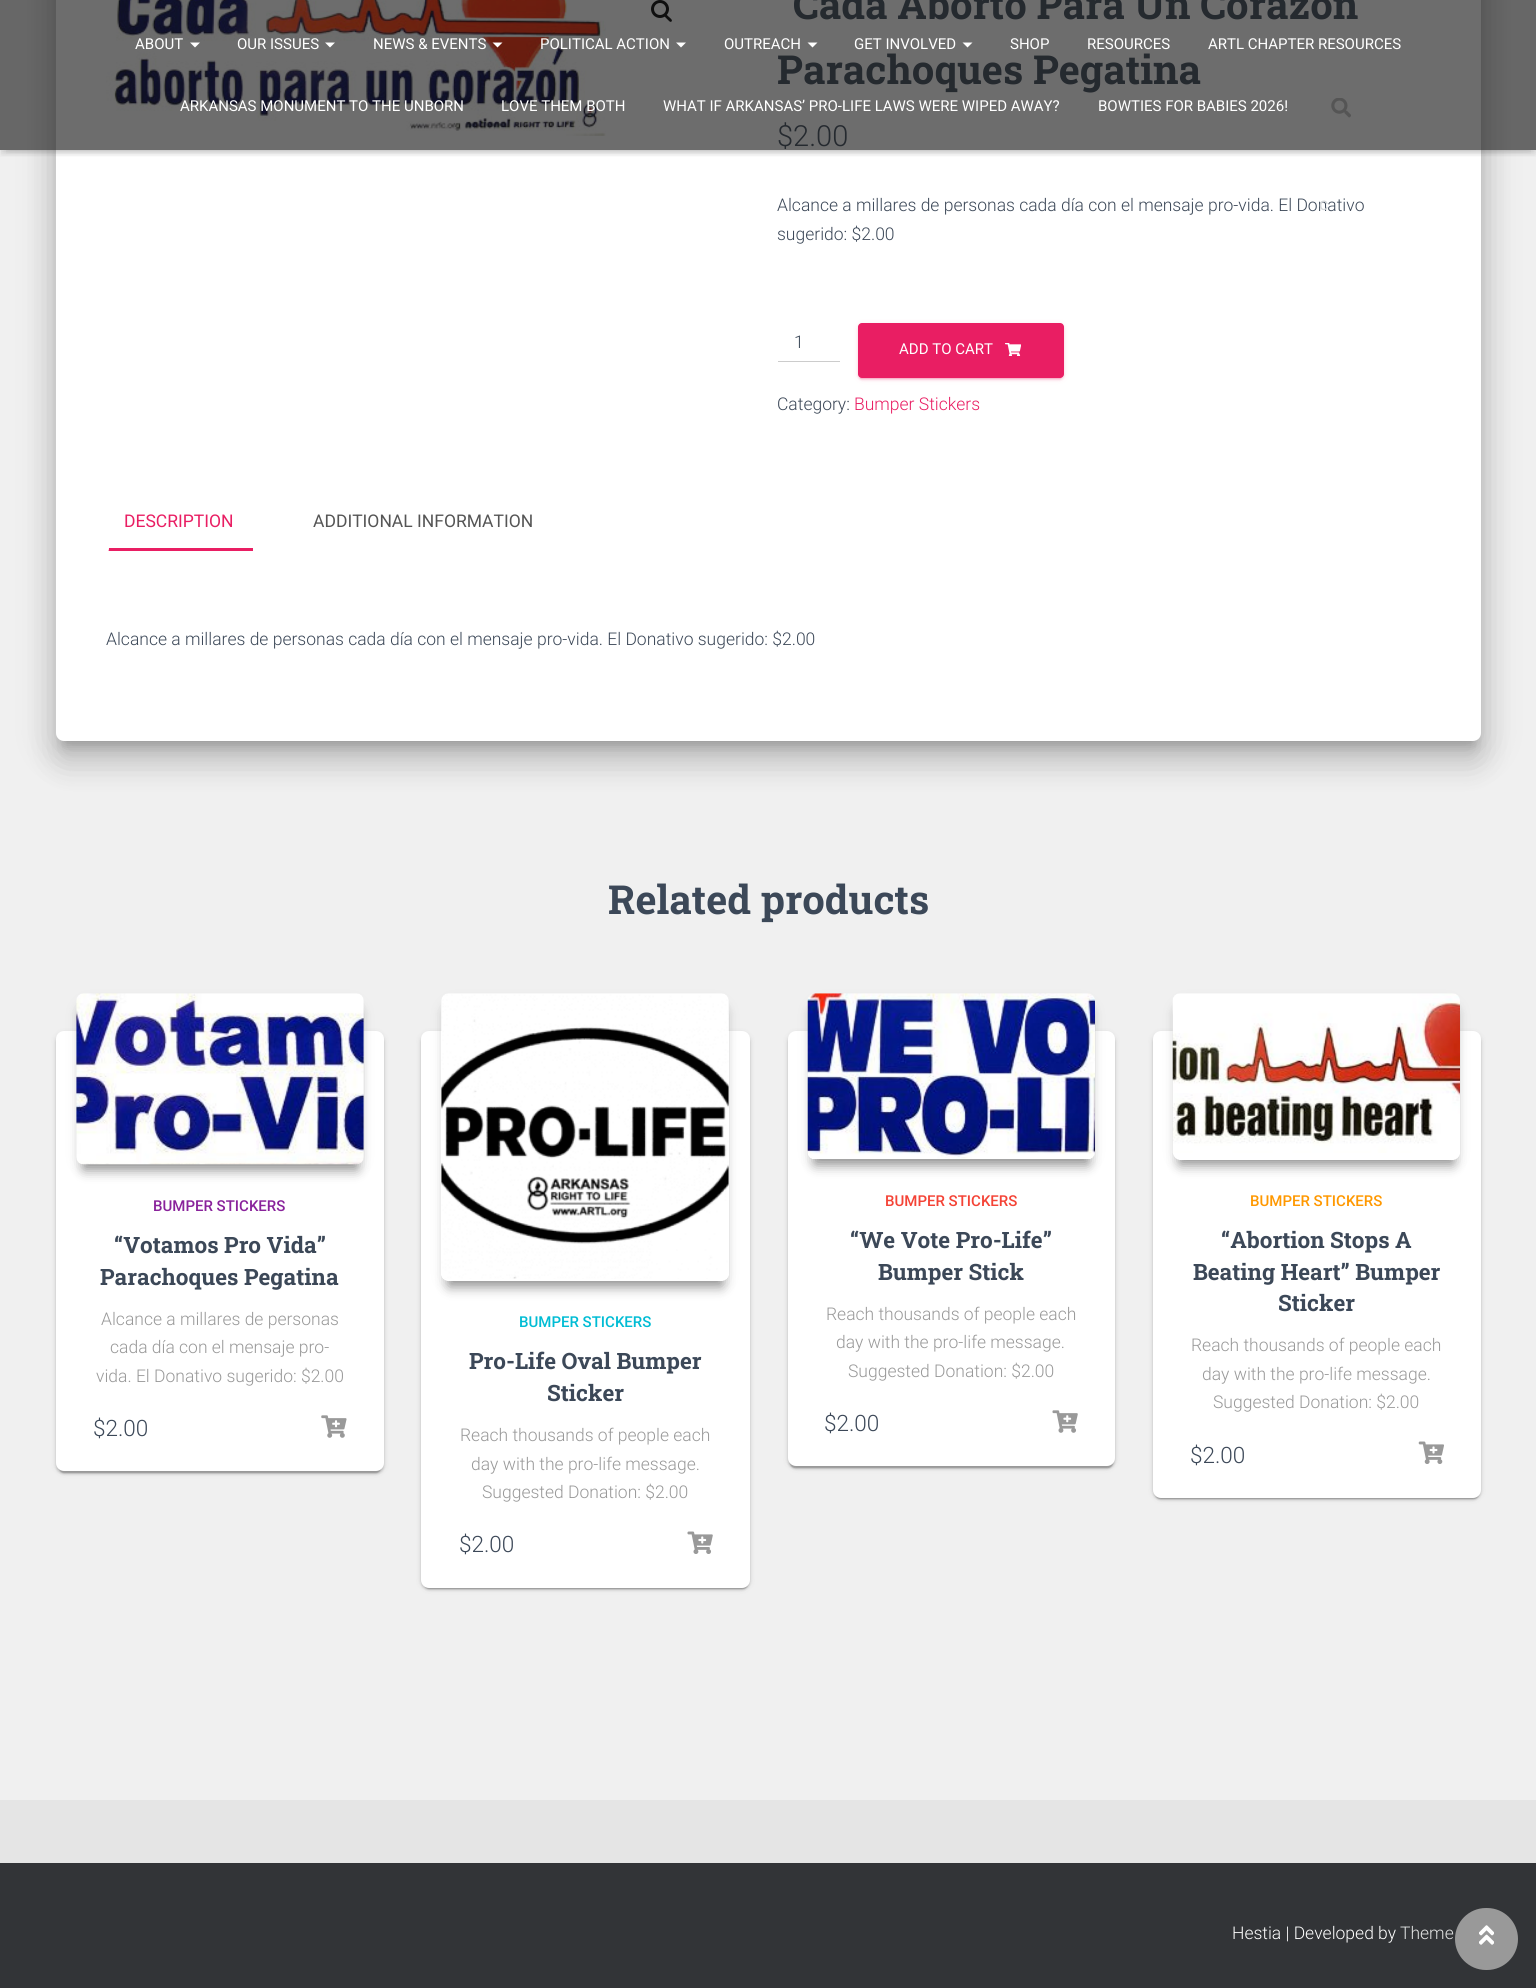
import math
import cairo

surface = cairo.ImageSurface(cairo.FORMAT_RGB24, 1536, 1988)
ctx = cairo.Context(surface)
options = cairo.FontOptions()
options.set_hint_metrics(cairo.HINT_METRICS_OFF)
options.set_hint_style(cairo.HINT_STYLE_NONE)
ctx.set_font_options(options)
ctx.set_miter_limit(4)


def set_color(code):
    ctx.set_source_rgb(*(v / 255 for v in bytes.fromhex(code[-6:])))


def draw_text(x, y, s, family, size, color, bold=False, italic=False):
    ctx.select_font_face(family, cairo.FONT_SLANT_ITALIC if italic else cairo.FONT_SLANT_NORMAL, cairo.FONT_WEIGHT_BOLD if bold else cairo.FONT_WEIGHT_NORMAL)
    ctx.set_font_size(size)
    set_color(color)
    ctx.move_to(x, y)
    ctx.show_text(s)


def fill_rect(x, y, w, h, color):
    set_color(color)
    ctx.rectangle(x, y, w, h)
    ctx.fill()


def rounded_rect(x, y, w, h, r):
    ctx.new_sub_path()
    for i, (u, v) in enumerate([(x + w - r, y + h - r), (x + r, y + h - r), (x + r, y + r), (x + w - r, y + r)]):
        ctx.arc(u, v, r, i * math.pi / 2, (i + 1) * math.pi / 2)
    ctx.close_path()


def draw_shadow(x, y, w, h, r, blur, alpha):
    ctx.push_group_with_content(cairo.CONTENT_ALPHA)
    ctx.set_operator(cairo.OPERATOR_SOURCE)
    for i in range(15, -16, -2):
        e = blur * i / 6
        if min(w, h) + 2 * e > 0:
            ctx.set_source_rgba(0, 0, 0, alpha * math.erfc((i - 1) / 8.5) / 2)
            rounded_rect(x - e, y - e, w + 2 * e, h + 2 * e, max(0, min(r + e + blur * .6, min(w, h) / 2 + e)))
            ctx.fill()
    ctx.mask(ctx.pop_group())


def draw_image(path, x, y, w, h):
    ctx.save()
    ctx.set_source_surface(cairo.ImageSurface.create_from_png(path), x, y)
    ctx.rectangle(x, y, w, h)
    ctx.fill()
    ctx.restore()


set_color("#e5e5e5")
ctx.paint()
fill_rect(0, 0, 1536, 1800, "#f0f0f0")
set_color("#000000")
draw_shadow(63, -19, 1412, 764, 1, 6, 0.2)
draw_shadow(50, -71, 1438, 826, 14, 19, 0.12)
draw_shadow(54, -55, 1430, 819, 10, 15, 0.14)
set_color("#ffffff")
rounded_rect(56, -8, 1425, 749, 8)
ctx.fill()
draw_image("assets/img1.png", 106, 0, 500, 136)
ctx.arc(660, 9, 7.5, 0, 2 * math.pi)
set_color("#000000")
ctx.set_line_width(3)
ctx.stroke()
ctx.new_path()
ctx.move_to(664.5, 14.5)
ctx.curve_to(666, 13, 668, 16.5, 669, 17)
ctx.curve_to(670, 18, 673, 20, 671.5, 21.5)
ctx.curve_to(670, 23, 668, 19.5, 667, 19)
ctx.curve_to(666.5, 18, 663, 16, 664.5, 14.5)
ctx.close_path()
ctx.fill()
draw_text(793, 19, "Cada Aborto Para Un Corazón", "Roboto Slab", 40, "#3c4858", bold=True)
draw_text(777, 84, "Parachoques Pegatina", "Roboto Slab", 40, "#3c4858", bold=True)
draw_text(777, 146, "$2.00", "Roboto Light", 29, "#3c4858")
draw_text(777, 211, "Alcance a millares de personas cada día con el mensaje pro-vida. El Donativo", "Roboto Light", 17.5, "#3c4858")
draw_text(777, 240, "sugerido: $2.00", "Roboto Light", 17.5, "#3c4858")
fill_rect(778, 361, 62, 1, "#cccccc")
draw_text(794, 348, "1", "Roboto Light", 17.5, "#3c4858")
set_color("#e91e63")
draw_shadow(858, 324, 206, 55, 4, 3, 0.12)
draw_shadow(860, 329, 201, 50, 1, 0.5, 0.2)
draw_shadow(858, 325, 206, 55, 4, 1, 0.14)
set_color("#e91e63")
rounded_rect(858, 323, 206, 55, 4)
ctx.fill()
draw_text(899, 354, "ADD TO CART", "Roboto", 15, "#ffffff")
draw_image("assets/img2.png", 1005, 343, 16, 13)
draw_text(777, 410, "Category:", "Roboto Light", 17.5, "#3c4858")
draw_text(854, 410, "Bumper Stickers", "Roboto Light", 17.5, "#e91e63")
fill_rect(106, 548, 147, 3, "#e91e63")
draw_text(124, 527, "DESCRIPTION", "Roboto", 17.5, "#e91e63")
set_color("#ffffff")
ctx.new_path()
ctx.move_to(103, 551)
ctx.line_to(103, 554)
ctx.curve_to(107, 554, 109, 552, 109, 548)
ctx.line_to(106, 548)
ctx.curve_to(105.5, 549.5, 104.5, 550.5, 103, 551)
ctx.close_path()
ctx.fill()
draw_text(313, 527, "ADDITIONAL INFORMATION", "Roboto", 17.5, "#555555")
draw_text(106, 645, "Alcance a millares de personas cada día con el mensaje pro-vida. El Donativo sugerido: $2.00", "Roboto Light", 17.5, "#3c4858")
draw_text(608, 914, "Related products", "Roboto Slab", 40, "#3c4858", bold=True)
set_color("#000000")
draw_shadow(56, 1033, 328, 440, 8, 3, 0.12)
draw_shadow(59, 1038, 322, 435, 5, 0.5, 0.2)
draw_shadow(56, 1034, 328, 440, 8, 1, 0.14)
set_color("#ffffff")
rounded_rect(56, 1031, 328, 440, 8)
ctx.fill()
set_color("#000000")
draw_shadow(83, 1013, 275, 158, 1, 6, 0.2)
draw_shadow(83, 1010, 275, 159, 1, 6, 0.2)
draw_shadow(86, 1010, 268, 151, 0, 9.5, 0.24)
draw_image("assets/img3.png", 76, 993, 288, 172)
draw_text(153, 1211, "BUMPER STICKERS", "Roboto Medium", 15, "#89229b")
draw_text(114, 1253, "“Votamos Pro Vida”", "Roboto Slab", 22.5, "#3c4858", bold=True)
draw_text(100, 1285, "Parachoques Pegatina", "Roboto Slab", 22.5, "#3c4858", bold=True)
draw_text(101, 1325, "Alcance a millares de personas", "Roboto Light", 17.5, "#999999")
draw_text(110, 1353, "cada día con el mensaje pro-", "Roboto Light", 17.5, "#999999")
draw_text(96, 1382, "vida. El Donativo sugerido: $2.00", "Roboto Light", 17.5, "#999999")
draw_text(93, 1436, "$2.00", "Roboto Light", 22.5, "#3c4858")
draw_image("assets/img4.png", 321, 1415, 26, 23)
set_color("#000000")
draw_shadow(421, 1033, 329, 556, 8, 3, 0.12)
draw_shadow(424, 1038, 324, 551, 5, 0.5, 0.2)
draw_shadow(421, 1034, 329, 556, 8, 1, 0.14)
set_color("#ffffff")
rounded_rect(421, 1031, 329, 557, 8)
ctx.fill()
ctx.save()
ctx.set_fill_rule(cairo.FILL_RULE_EVEN_ODD)
ctx.new_path()
ctx.move_to(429, 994)
ctx.line_to(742, 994)
ctx.line_to(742, 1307)
ctx.line_to(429, 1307)
ctx.close_path()
ctx.move_to(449, 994)
ctx.line_to(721, 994)
ctx.curve_to(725.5, 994, 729, 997.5, 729, 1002)
ctx.line_to(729, 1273)
ctx.curve_to(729, 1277.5, 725.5, 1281, 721, 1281)
ctx.line_to(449, 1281)
ctx.curve_to(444.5, 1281, 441, 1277.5, 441, 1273)
ctx.line_to(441, 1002)
ctx.curve_to(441, 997.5, 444.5, 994, 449, 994)
ctx.close_path()
ctx.clip()
set_color("#000000")
draw_shadow(448, 1013, 275, 275, 1, 6, 0.2)
ctx.restore()
ctx.save()
ctx.set_fill_rule(cairo.FILL_RULE_EVEN_ODD)
ctx.new_path()
ctx.move_to(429, 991)
ctx.line_to(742, 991)
ctx.line_to(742, 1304)
ctx.line_to(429, 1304)
ctx.close_path()
ctx.move_to(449, 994)
ctx.line_to(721, 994)
ctx.curve_to(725.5, 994, 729, 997.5, 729, 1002)
ctx.line_to(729, 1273)
ctx.curve_to(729, 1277.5, 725.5, 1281, 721, 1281)
ctx.line_to(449, 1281)
ctx.curve_to(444.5, 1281, 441, 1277.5, 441, 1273)
ctx.line_to(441, 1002)
ctx.curve_to(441, 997.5, 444.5, 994, 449, 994)
ctx.close_path()
ctx.clip()
set_color("#000000")
draw_shadow(448, 1010, 275, 275, 1, 6, 0.2)
ctx.restore()
ctx.save()
ctx.set_fill_rule(cairo.FILL_RULE_EVEN_ODD)
ctx.new_path()
ctx.move_to(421, 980)
ctx.line_to(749, 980)
ctx.line_to(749, 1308)
ctx.line_to(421, 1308)
ctx.close_path()
ctx.move_to(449, 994)
ctx.line_to(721, 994)
ctx.curve_to(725.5, 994, 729, 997.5, 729, 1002)
ctx.line_to(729, 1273)
ctx.curve_to(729, 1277.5, 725.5, 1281, 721, 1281)
ctx.line_to(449, 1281)
ctx.curve_to(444.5, 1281, 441, 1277.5, 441, 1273)
ctx.line_to(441, 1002)
ctx.curve_to(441, 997.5, 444.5, 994, 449, 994)
ctx.close_path()
ctx.clip()
set_color("#000000")
draw_shadow(451, 1010, 268, 268, 0, 9.5, 0.24)
ctx.restore()
draw_image("assets/img5.png", 441, 993, 288, 286)
draw_text(519, 1327, "BUMPER STICKERS", "Roboto Medium", 15, "#00bcd4")
draw_text(469, 1369, "Pro-Life Oval Bumper", "Roboto Slab", 22.5, "#3c4858", bold=True)
draw_text(547, 1401, "Sticker", "Roboto Slab", 22.5, "#3c4858", bold=True)
draw_text(460, 1441, "Reach thousands of people each", "Roboto Light", 17.5, "#999999")
draw_text(471, 1470, "day with the pro-life message.", "Roboto Light", 17.5, "#999999")
draw_text(482, 1498, "Suggested Donation: $2.00", "Roboto Light", 17.5, "#999999")
draw_text(459, 1552, "$2.00", "Roboto Light", 22.5, "#3c4858")
draw_image("assets/img6.png", 687, 1531, 26, 23)
set_color("#000000")
draw_shadow(788, 1033, 327, 435, 8, 3, 0.12)
draw_shadow(790, 1038, 323, 430, 5, 0.5, 0.2)
draw_shadow(788, 1034, 327, 435, 8, 1, 0.14)
set_color("#ffffff")
rounded_rect(788, 1031, 327, 435, 8)
ctx.fill()
set_color("#000000")
draw_shadow(814, 1013, 275, 153, 1, 6, 0.2)
draw_shadow(814, 1010, 275, 154, 1, 6, 0.2)
draw_shadow(818, 1010, 267, 146, 0, 9.5, 0.24)
draw_image("assets/img7.png", 807, 993, 288, 166)
draw_text(885, 1206, "BUMPER STICKERS", "Roboto Medium", 15, "#f44336")
draw_text(850, 1248, "“We Vote Pro-Life”", "Roboto Slab", 22.5, "#3c4858", bold=True)
draw_text(878, 1280, "Bumper Stick", "Roboto Slab", 22.5, "#3c4858", bold=True)
draw_text(826, 1320, "Reach thousands of people each", "Roboto Light", 17.5, "#999999")
draw_text(836, 1348, "day with the pro-life message.", "Roboto Light", 17.5, "#999999")
draw_text(848, 1377, "Suggested Donation: $2.00", "Roboto Light", 17.5, "#999999")
draw_text(824, 1431, "$2.00", "Roboto Light", 22.5, "#3c4858")
draw_image("assets/img8.png", 1052, 1410, 26, 23)
set_color("#000000")
draw_shadow(1153, 1033, 328, 466, 8, 3, 0.12)
draw_shadow(1155, 1038, 324, 461, 5, 0.5, 0.2)
draw_shadow(1153, 1034, 328, 466, 8, 1, 0.14)
set_color("#ffffff")
rounded_rect(1153, 1031, 328, 467, 8)
ctx.fill()
ctx.save()
ctx.set_fill_rule(cairo.FILL_RULE_EVEN_ODD)
ctx.new_path()
ctx.move_to(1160, 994)
ctx.line_to(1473, 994)
ctx.line_to(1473, 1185)
ctx.line_to(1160, 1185)
ctx.close_path()
ctx.move_to(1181, 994)
ctx.line_to(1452, 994)
ctx.curve_to(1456.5, 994, 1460, 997.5, 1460, 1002)
ctx.line_to(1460, 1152)
ctx.curve_to(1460, 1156.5, 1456.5, 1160, 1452, 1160)
ctx.line_to(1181, 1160)
ctx.curve_to(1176.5, 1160, 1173, 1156.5, 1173, 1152)
ctx.line_to(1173, 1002)
ctx.curve_to(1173, 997.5, 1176.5, 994, 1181, 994)
ctx.close_path()
ctx.clip()
set_color("#000000")
draw_shadow(1179, 1013, 275, 153, 1, 6, 0.2)
ctx.restore()
ctx.save()
ctx.set_fill_rule(cairo.FILL_RULE_EVEN_ODD)
ctx.new_path()
ctx.move_to(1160, 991)
ctx.line_to(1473, 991)
ctx.line_to(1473, 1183)
ctx.line_to(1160, 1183)
ctx.close_path()
ctx.move_to(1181, 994)
ctx.line_to(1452, 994)
ctx.curve_to(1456.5, 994, 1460, 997.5, 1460, 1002)
ctx.line_to(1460, 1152)
ctx.curve_to(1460, 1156.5, 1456.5, 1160, 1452, 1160)
ctx.line_to(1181, 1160)
ctx.curve_to(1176.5, 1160, 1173, 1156.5, 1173, 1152)
ctx.line_to(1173, 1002)
ctx.curve_to(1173, 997.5, 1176.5, 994, 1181, 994)
ctx.close_path()
ctx.clip()
set_color("#000000")
draw_shadow(1179, 1010, 275, 154, 1, 6, 0.2)
ctx.restore()
ctx.save()
ctx.set_fill_rule(cairo.FILL_RULE_EVEN_ODD)
ctx.new_path()
ctx.move_to(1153, 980)
ctx.line_to(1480, 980)
ctx.line_to(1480, 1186)
ctx.line_to(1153, 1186)
ctx.close_path()
ctx.move_to(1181, 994)
ctx.line_to(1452, 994)
ctx.curve_to(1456.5, 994, 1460, 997.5, 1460, 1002)
ctx.line_to(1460, 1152)
ctx.curve_to(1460, 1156.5, 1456.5, 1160, 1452, 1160)
ctx.line_to(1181, 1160)
ctx.curve_to(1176.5, 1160, 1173, 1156.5, 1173, 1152)
ctx.line_to(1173, 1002)
ctx.curve_to(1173, 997.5, 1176.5, 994, 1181, 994)
ctx.close_path()
ctx.clip()
set_color("#000000")
draw_shadow(1183, 1010, 267, 146, 0, 9.5, 0.24)
ctx.restore()
draw_image("assets/img9.png", 1172, 993, 288, 160)
draw_text(1250, 1206, "BUMPER STICKERS", "Roboto Medium", 15, "#ff9800")
draw_text(1221, 1248, "“Abortion Stops A", "Roboto Slab", 22.5, "#3c4858", bold=True)
draw_text(1193, 1280, "Beating Heart” Bumper", "Roboto Slab", 22.5, "#3c4858", bold=True)
draw_text(1278, 1311, "Sticker", "Roboto Slab", 22.5, "#3c4858", bold=True)
draw_text(1191, 1351, "Reach thousands of people each", "Roboto Light", 17.5, "#999999")
draw_text(1202, 1380, "day with the pro-life message.", "Roboto Light", 17.5, "#999999")
draw_text(1213, 1408, "Suggested Donation: $2.00", "Roboto Light", 17.5, "#999999")
draw_text(1190, 1463, "$2.00", "Roboto Light", 22.5, "#3c4858")
draw_image("assets/img10.png", 1418, 1441, 26, 23)
ctx.save()
ctx.rectangle(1, 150, 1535, 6)
ctx.clip()
set_color("#000000")
draw_shadow(3, 8, 1531, 145, 0, 3, 0.1)
ctx.restore()
ctx.save()
ctx.rectangle(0, 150, 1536, 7)
ctx.clip()
set_color("#000000")
draw_shadow(0, 1, 1536, 150, 0, 6, 0.12)
ctx.restore()
ctx.save()
ctx.rectangle(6, 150, 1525, 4)
ctx.clip()
set_color("#000000")
draw_shadow(8, 9, 1521, 135, 0, 6, 0.42)
ctx.restore()
ctx.set_source_rgba(0.098, 0.098, 0.098, 0.63)
ctx.rectangle(0, 0, 1536, 150)
ctx.fill()
draw_text(135, 49, "ABOUT", "Roboto", 15, "#ffffff")
ctx.new_path()
ctx.move_to(190, 42.5)
ctx.line_to(200, 42.5)
ctx.line_to(195, 47.5)
ctx.close_path()
ctx.fill()
draw_text(237, 49, "OUR ISSUES", "Roboto", 15, "#ffffff")
ctx.new_path()
ctx.move_to(325, 42.5)
ctx.line_to(335, 42.5)
ctx.line_to(330, 47.5)
ctx.close_path()
ctx.fill()
draw_text(373, 49, "NEWS & EVENTS", "Roboto", 15, "#ffffff")
ctx.new_path()
ctx.move_to(492.5, 42.5)
ctx.line_to(502.5, 42.5)
ctx.line_to(497.5, 47.5)
ctx.close_path()
ctx.fill()
draw_text(540, 49, "POLITICAL ACTION", "Roboto", 15, "#ffffff")
ctx.new_path()
ctx.move_to(676, 42.5)
ctx.line_to(686, 42.5)
ctx.line_to(681, 47.5)
ctx.close_path()
ctx.fill()
draw_text(724, 49, "OUTREACH", "Roboto", 15, "#ffffff")
ctx.new_path()
ctx.move_to(807.5, 42.5)
ctx.line_to(817.5, 42.5)
ctx.line_to(812.5, 47.5)
ctx.close_path()
ctx.fill()
draw_text(854, 49, "GET INVOLVED", "Roboto", 15, "#ffffff")
ctx.new_path()
ctx.move_to(962.5, 42.5)
ctx.line_to(972.5, 42.5)
ctx.line_to(967.5, 47.5)
ctx.close_path()
ctx.fill()
draw_text(1010, 49, "SHOP", "Roboto", 15, "#ffffff")
draw_text(1087, 49, "RESOURCES", "Roboto", 15, "#ffffff")
draw_text(1208, 49, "ARTL CHAPTER RESOURCES", "Roboto", 15, "#ffffff")
draw_text(180, 111, "ARKANSAS MONUMENT TO THE UNBORN", "Roboto", 15, "#ffffff")
draw_text(501, 111, "LOVE THEM BOTH", "Roboto", 15, "#ffffff")
draw_text(663, 111, "WHAT IF ARKANSAS’ PRO-LIFE LAWS WERE WIPED AWAY?", "Roboto", 15, "#ffffff")
draw_text(1098, 111, "BOWTIES FOR BABIES 2026!", "Roboto", 15, "#ffffff")
draw_image("assets/img11.png", 1331, 98, 20, 20)
draw_text(1319, 210, "c", "Roboto", 17.5, "#d3d6d9")
fill_rect(0, 1863, 1536, 125, "#323437")
draw_text(1232, 1939, "Hestia | Developed by", "Roboto Light", 17.5, "#ffffff")
draw_text(1400, 1939, "Theme", "Roboto Light", 17.5, "#e2e3e3")
set_color("#999999")
rounded_rect(1455, 1908, 63, 62, 31)
ctx.fill()
draw_image("assets/img12.png", 1479, 1925, 15, 20)
surface.write_to_png("output.png")
